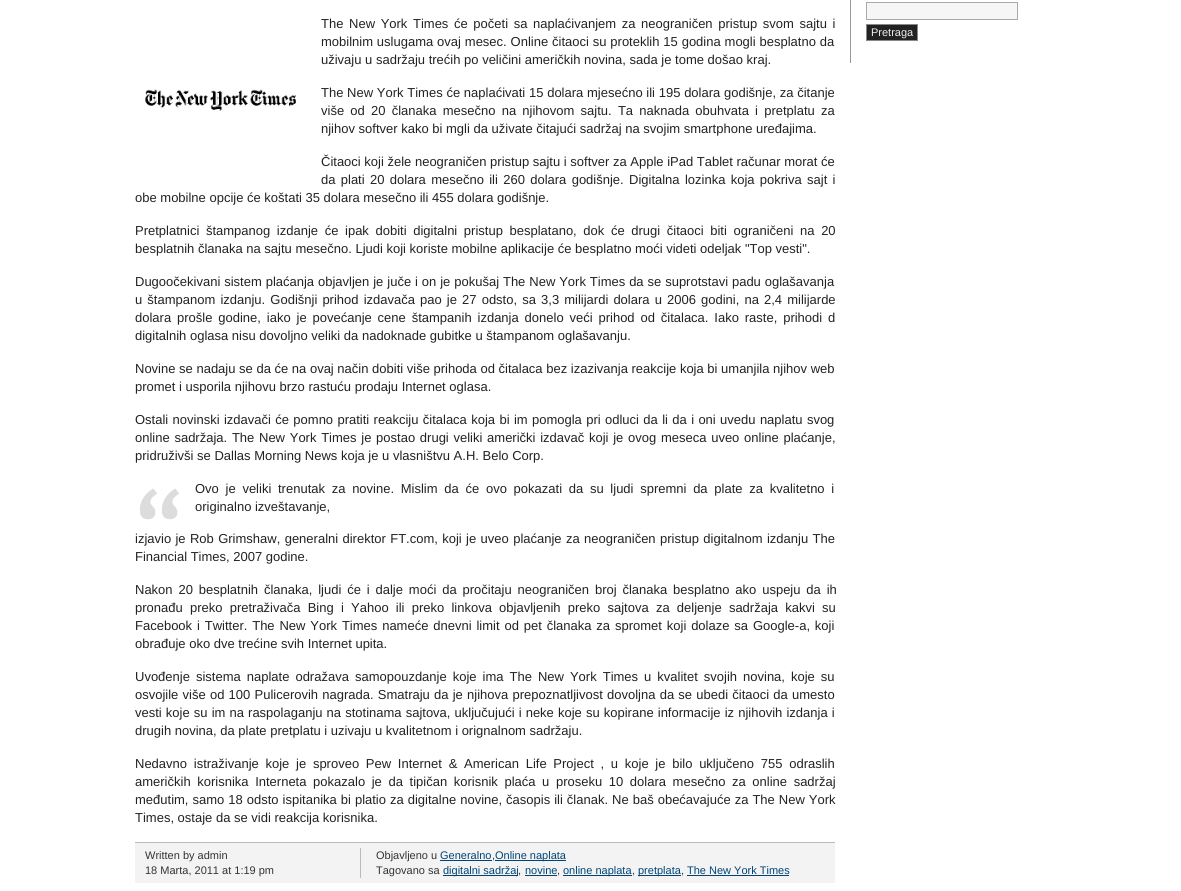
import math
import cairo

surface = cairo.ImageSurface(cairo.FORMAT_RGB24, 1181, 891)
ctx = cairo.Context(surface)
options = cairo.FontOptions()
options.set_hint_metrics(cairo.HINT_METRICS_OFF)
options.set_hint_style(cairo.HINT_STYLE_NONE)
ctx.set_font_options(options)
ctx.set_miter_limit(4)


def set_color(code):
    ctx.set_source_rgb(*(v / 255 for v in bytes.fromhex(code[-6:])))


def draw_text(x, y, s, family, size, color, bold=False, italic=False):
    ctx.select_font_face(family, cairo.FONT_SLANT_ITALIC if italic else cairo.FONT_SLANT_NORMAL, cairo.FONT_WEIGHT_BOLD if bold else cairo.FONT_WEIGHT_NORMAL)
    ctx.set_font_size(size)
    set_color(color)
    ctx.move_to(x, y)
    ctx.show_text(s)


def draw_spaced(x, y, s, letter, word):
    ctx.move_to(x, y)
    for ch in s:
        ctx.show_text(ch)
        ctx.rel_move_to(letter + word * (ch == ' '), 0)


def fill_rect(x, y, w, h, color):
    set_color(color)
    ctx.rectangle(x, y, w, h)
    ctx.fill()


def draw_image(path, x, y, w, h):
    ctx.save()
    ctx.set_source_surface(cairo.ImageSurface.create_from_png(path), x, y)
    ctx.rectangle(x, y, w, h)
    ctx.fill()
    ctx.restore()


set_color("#ffffff")
ctx.paint()
ctx.select_font_face("Liberation Sans")
ctx.set_font_size(13)
set_color("#222222")
draw_spaced(321, 28, "The New York Times će početi sa naplaćivanjem za neograničen pristup svom sajtu i", 0, 2)
draw_spaced(321, 46, "mobilnim uslugama ovaj mesec. Online čitaoci su proteklih 15 godina mogli besplatno da", 0, 0.25)
draw_text(321, 64, "uživaju u sadržaju trećih po veličini američkih novina, sada je tome došao kraj.", "Liberation Sans", 13, "#222222")
draw_image("assets/img1.png", 145, 89, 151, 22)
draw_spaced(321, 97, "The New York Times će naplaćivati 15 dolara mjesećno ili 195 dolara godišnje, za čitanje", 0, 0.1)
draw_spaced(321, 115, "više od 20 članaka mesečno na njihovom sajtu. Ta naknada obuhvata i pretplatu za", 0, 2.6)
draw_text(321, 133, "njihov softver kako bi mgli da uživate čitajući sadržaj na svojim smartphone uređajima.", "Liberation Sans", 13, "#222222")
draw_text(321, 166, "Čitaoci koji žele neograničen pristup sajtu i softver za Apple iPad Tablet računar morat će", "Liberation Sans", 13, "#222222")
draw_spaced(321, 184, "da plati 20 dolara mesečno ili 260 dolara godišnje. Digitalna lozinka koja pokriva sajt i", 0, 1.7)
draw_text(135, 202, "obe mobilne opcije će koštati 35 dolara mesečno ili 455 dolara godišnje.", "Liberation Sans", 13, "#222222")
draw_spaced(135, 235, "Pretplatnici štampanog izdanje će ipak dobiti digitalni pristup besplatano, dok će drugi čitaoci biti ograničeni na 20", 0, 3)
draw_text(135, 253, "besplatnih članaka na sajtu mesečno. Ljudi koji koriste mobilne aplikacije će besplatno moći videti odeljak \"Top vesti\".", "Liberation Sans", 13, "#222222")
draw_spaced(135, 286, "Dugoočekivani sistem plaćanja objavljen je juče i on je pokušaj The New York Times da se suprotstavi padu oglašavanja", 0, 0.3)
draw_spaced(135, 304, "u štampanom izdanju. Godišnji prihod izdavača pao je 27 odsto, sa 3,3 milijardi dolara u 2006 godini, na 2,4 milijarde", 0, 1.5)
draw_spaced(135, 322, "dolara prošle godine, iako je povećanje cene štampanih izdanja donelo veći prihod od čitalaca. Iako raste, prihodi d", 0, 2.25)
draw_text(135, 340, "digitalnih oglasa nisu dovoljno veliki da nadoknade gubitke u štampanom oglašavanju.", "Liberation Sans", 13, "#222222")
draw_text(135, 373, "Novine se nadaju se da će na ovaj način dobiti više prihoda od čitalaca bez izazivanja reakcije koja bi umanjila njihov web", "Liberation Sans", 13, "#222222")
draw_text(135, 391, "promet i usporila njihovu brzo rastuću prodaju Internet oglasa.", "Liberation Sans", 13, "#222222")
draw_spaced(135, 424, "Ostali novinski izdavači će pomno pratiti reakciju čitalaca koja bi im pomogla pri odluci da li da i oni uvedu naplatu svog", 0, 0.75)
draw_spaced(135, 442, "online sadržaja. The New York Times je postao drugi veliki američki izdavač koji je ovog meseca uveo online plaćanje,", 0, 1.1)
draw_text(135, 460, "pridruživši se Dallas Morning News koja je u vlasništvu A.H. Belo Corp.", "Liberation Sans", 13, "#222222")
draw_image("assets/img2.png", 140, 488, 39, 32)
draw_spaced(195, 493, "Ovo je veliki trenutak za novine. Mislim da će ovo pokazati da su ljudi spremni da plate za kvalitetno i", 0, 3.1)
draw_text(195, 511, "originalno izveštavanje,", "Liberation Sans", 13, "#222222")
draw_spaced(135, 543, "izjavio je Rob Grimshaw, generalni direktor FT.com, koji je uveo plaćanje za neograničen pristup digitalnom izdanju The", 0, 0.75)
draw_text(135, 561, "Financial Times, 2007 godine.", "Liberation Sans", 13, "#222222")
draw_spaced(135, 594, "Nakon 20 besplatnih članaka, ljudi će i dalje moći da pročitaju neograničen broj članaka besplatno ako uspeju da ih", 0, 2.25)
draw_spaced(135, 612, "pronađu preko pretraživača Bing i Yahoo ili preko linkova objavljenih preko sajtova za deljenje sadržaja kakvi su", 0, 3.6)
draw_spaced(135, 630, "Facebook i Twitter. The New York Times nameće dnevni limit od pet članaka za spromet koji dolaze sa Google-a, koji", 0, 1.25)
draw_text(135, 648, "obrađuje oko dve trećine svih Internet upita.", "Liberation Sans", 13, "#222222")
draw_spaced(135, 681, "Uvođenje sistema naplate odražava samopouzdanje koje ima The New York Times u kvalitet svojih novina, koje su", 0, 2.4)
draw_spaced(135, 699, "osvojile više od 100 Pulicerovih nagrada. Smatraju da je njihova prepoznatljivost dovoljna da se ubedi čitaoci da umesto", 0, 0.6)
draw_spaced(135, 717, "vesti koje su im na raspolaganju na stotinama sajtova, uključujući i neke koje su kopirane informacije iz njihovih izdanja i", 0, 0.5)
draw_text(135, 735, "drugih novina, da plate pretplatu i uzivaju u kvalitetnom i orignalnom sadržaju.", "Liberation Sans", 13, "#222222")
draw_spaced(135, 768, "Nedavno istraživanje koje je sproveo Pew Internet & American Life Project , u koje je bilo uključeno 755 odraslih", 0, 3.1)
draw_spaced(135, 786, "američkih korisnika Interneta pokazalo je da tipičan korisnik plaća u proseku 10 dolara mesečno za online sadržaj", 0, 3)
draw_spaced(135, 804, "međutim, samo 18 odsto ispitanika bi platio za digitalne novine, časopis ili članak. Ne baš obećavajuće za The New York", 0, 0.4)
draw_text(135, 822, "Times, ostaje da se vidi reakcija korisnika.", "Liberation Sans", 13, "#222222")
fill_rect(135, 843, 700, 40, "#f3f3f3")
fill_rect(135, 842, 700, 1, "#bbbbbb")
fill_rect(360, 848, 1, 30, "#bbbbbb")
draw_text(145, 859, "Written by admin", "Liberation Sans", 11, "#333333")
draw_text(145, 874, "18 Marta, 2011 at 1:19 pm", "Liberation Sans", 11, "#333333")
draw_text(376, 859, "Objavljeno u", "Liberation Sans", 11, "#333333")
draw_text(440, 859, "Generalno", "Liberation Sans", 11, "#004477")
fill_rect(440, 860, 52, 1, "#004477")
draw_text(492, 859, ",", "Liberation Sans", 11, "#333333")
fill_rect(495, 860, 71, 1, "#004477")
draw_text(495, 859, "Online naplata", "Liberation Sans", 11, "#004477")
draw_text(376, 874, "Tagovano sa", "Liberation Sans", 11, "#333333")
fill_rect(443, 875, 75, 1, "#004477")
draw_text(443, 874, "digitalni sadržaj", "Liberation Sans", 11, "#004477")
draw_text(518, 874, ",", "Liberation Sans", 11, "#333333")
draw_text(525, 874, "novine", "Liberation Sans", 11, "#004477")
fill_rect(525, 875, 32, 1, "#004477")
draw_text(557, 874, ",", "Liberation Sans", 11, "#333333")
fill_rect(563, 875, 69, 1, "#004477")
draw_text(563, 874, "online naplata", "Liberation Sans", 11, "#004477")
draw_text(632, 874, ",", "Liberation Sans", 11, "#333333")
fill_rect(638, 875, 43, 1, "#004477")
draw_text(638, 874, "pretplata", "Liberation Sans", 11, "#004477")
draw_text(681, 874, ",", "Liberation Sans", 11, "#333333")
draw_text(687, 874, "The New York Times", "Liberation Sans", 11, "#004477")
fill_rect(687, 875, 102, 1, "#004477")
fill_rect(850, 0, 1, 63, "#999999")
set_color("#f6f6f6")
ctx.rectangle(866.5, 2.5, 151, 17)
ctx.fill_preserve()
set_color("#aaaaaa")
ctx.set_line_width(1)
ctx.stroke()
set_color("#222222")
ctx.rectangle(866.5, 24.5, 51, 16)
ctx.fill_preserve()
set_color("#888888")
ctx.stroke()
draw_text(871, 36, "Pretraga", "Liberation Sans", 11, "#eeeeee")
surface.write_to_png("output.png")
